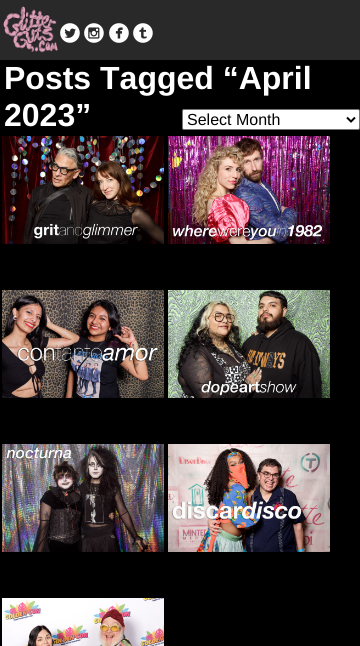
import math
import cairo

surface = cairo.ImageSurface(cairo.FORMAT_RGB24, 360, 646)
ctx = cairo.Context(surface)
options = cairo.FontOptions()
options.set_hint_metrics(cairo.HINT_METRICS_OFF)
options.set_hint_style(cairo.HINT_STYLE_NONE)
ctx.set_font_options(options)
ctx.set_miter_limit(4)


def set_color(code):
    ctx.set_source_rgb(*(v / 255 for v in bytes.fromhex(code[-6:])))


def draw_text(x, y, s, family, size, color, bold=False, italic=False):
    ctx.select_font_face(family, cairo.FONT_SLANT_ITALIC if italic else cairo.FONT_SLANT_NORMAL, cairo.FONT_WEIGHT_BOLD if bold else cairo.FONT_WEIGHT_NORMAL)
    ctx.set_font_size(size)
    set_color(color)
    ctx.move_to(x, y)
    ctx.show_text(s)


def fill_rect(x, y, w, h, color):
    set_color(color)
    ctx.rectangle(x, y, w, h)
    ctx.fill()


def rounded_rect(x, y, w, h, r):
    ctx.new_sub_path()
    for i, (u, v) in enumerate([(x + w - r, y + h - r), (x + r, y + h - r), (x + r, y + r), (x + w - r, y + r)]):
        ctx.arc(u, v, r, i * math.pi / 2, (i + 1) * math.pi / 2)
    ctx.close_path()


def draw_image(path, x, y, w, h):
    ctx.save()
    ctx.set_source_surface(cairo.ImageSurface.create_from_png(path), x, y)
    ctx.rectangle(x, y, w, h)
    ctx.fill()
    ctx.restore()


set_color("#000000")
ctx.paint()
fill_rect(0, 0, 360, 60, "#292929")
draw_image("assets/img1.png", 3, 6, 55, 48)
draw_image("assets/img2.png", 60, 23, 20, 20)
draw_image("assets/img3.png", 84, 23, 20, 20)
draw_image("assets/img4.png", 109, 23, 20, 20)
draw_image("assets/img5.png", 133, 23, 20, 20)
draw_text(4, 89, "Posts Tagged “April", "Liberation Sans", 32, "#ffffff", bold=True)
draw_text(4, 126, "2023”", "Liberation Sans", 32, "#ffffff", bold=True)
rounded_rect(182.5, 109.5, 177, 20, 1.5)
ctx.fill_preserve()
set_color("#767676")
ctx.set_line_width(1)
ctx.stroke()
ctx.new_path()
ctx.move_to(347, 117.5)
ctx.line_to(351, 121.5)
ctx.line_to(355, 117.5)
set_color("#000000")
ctx.set_line_width(2)
ctx.stroke()
draw_text(187, 125, "Select Month", "Liberation Sans", 16, "#000000")
draw_image("assets/img6.png", 2, 136, 162, 108)
draw_image("assets/img7.png", 168, 136, 162, 108)
draw_image("assets/img8.png", 2, 290, 162, 108)
draw_image("assets/img9.png", 168, 290, 162, 108)
draw_image("assets/img10.png", 2, 444, 162, 108)
draw_image("assets/img11.png", 168, 444, 162, 108)
draw_image("assets/img12.png", 2, 598, 162, 48)
surface.write_to_png("output.png")
